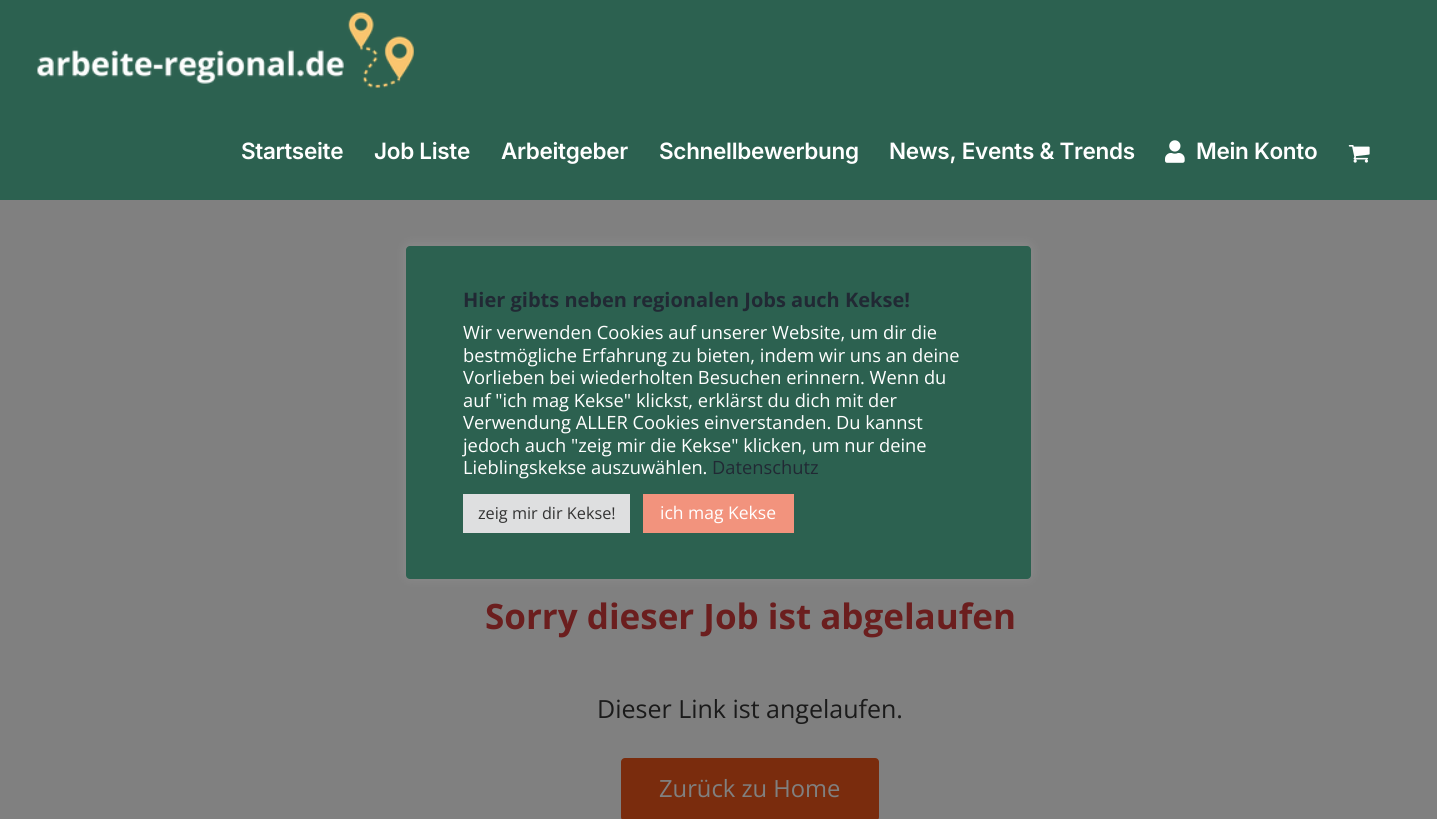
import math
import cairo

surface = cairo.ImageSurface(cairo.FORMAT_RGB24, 1437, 819)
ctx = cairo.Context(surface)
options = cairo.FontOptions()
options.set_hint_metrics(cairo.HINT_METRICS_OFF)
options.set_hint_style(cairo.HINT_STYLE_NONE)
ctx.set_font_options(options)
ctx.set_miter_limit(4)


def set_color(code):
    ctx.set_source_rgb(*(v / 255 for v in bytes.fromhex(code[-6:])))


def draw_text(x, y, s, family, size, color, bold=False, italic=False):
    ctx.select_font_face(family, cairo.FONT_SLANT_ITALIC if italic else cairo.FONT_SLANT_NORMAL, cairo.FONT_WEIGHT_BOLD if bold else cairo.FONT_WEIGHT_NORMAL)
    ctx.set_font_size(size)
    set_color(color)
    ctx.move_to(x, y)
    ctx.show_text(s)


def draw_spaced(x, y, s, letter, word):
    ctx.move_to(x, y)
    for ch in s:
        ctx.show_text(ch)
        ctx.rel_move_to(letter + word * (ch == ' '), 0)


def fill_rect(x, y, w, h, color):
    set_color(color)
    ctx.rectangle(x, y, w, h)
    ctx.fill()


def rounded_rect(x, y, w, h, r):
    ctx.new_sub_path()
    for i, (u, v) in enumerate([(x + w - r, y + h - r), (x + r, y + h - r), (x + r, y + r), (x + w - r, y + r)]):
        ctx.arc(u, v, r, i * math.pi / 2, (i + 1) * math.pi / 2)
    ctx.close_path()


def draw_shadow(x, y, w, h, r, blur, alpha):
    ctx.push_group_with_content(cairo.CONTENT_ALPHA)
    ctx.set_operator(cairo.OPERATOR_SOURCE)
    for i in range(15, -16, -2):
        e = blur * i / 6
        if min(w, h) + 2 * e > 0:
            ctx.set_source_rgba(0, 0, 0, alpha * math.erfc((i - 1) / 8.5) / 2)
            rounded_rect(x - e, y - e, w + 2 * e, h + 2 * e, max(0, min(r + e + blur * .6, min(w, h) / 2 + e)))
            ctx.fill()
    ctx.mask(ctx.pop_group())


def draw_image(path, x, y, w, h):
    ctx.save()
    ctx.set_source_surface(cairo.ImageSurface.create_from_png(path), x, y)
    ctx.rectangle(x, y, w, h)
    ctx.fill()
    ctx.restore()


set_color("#808080")
ctx.paint()
fill_rect(0, 0, 1437, 200, "#2c6150")
draw_image("assets/img1.png", 37, 12, 377, 76)
ctx.select_font_face("Inter SemiBold")
ctx.set_font_size(22.5)
set_color("#ffffff")
draw_spaced(241, 159, "Startseite", -0.3, 0)
draw_spaced(374, 159, "Job Liste", -0.3, 0)
draw_spaced(501, 159, "Arbeitgeber", -0.3, 0)
draw_spaced(659, 159, "Schnellbewerbung", -0.3, 0)
draw_spaced(889, 159, "News, Events & Trends", -0.3, 0)
draw_image("assets/img2.png", 1165, 140, 20, 23)
draw_spaced(1196, 159, "Mein Konto", -0.3, 0)
draw_image("assets/img3.png", 1348, 145, 22, 18)
draw_text(485, 629, "Sorry dieser Job ist abgelaufen", "Open Sans", 35, "#6b1e1e", bold=True)
draw_text(597, 718, "Dieser Link ist angelaufen.", "Open Sans", 25, "#1a1a1a")
set_color("#7a2c0d")
rounded_rect(621, 758, 258, 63, 4)
ctx.fill()
draw_text(659, 797, "Zurück zu Home", "Open Sans", 23.75, "#808080")
set_color("#acabab")
draw_shadow(406, 245, 625, 333, 4, 6, 0.3)
set_color("#2c6150")
rounded_rect(406, 246, 625, 333, 4)
ctx.fill()
draw_text(463, 307, "Hier gibts neben regionalen Jobs auch Kekse!", "Open Sans", 20, "#212934", bold=True)
draw_text(463, 339, "Wir verwenden Cookies auf unserer Website, um dir die", "Open Sans", 18.3, "#ffffff")
draw_text(463, 362, "bestmögliche Erfahrung zu bieten, indem wir uns an deine", "Open Sans", 18.3, "#ffffff")
draw_text(463, 384, "Vorlieben bei wiederholten Besuchen erinnern. Wenn du", "Open Sans", 18.3, "#ffffff")
draw_text(463, 407, "auf \"ich mag Kekse\" klickst, erklärst du dich mit der", "Open Sans", 18.3, "#ffffff")
draw_text(463, 429, "Verwendung ALLER Cookies einverstanden. Du kannst", "Open Sans", 18.3, "#ffffff")
draw_text(463, 452, "jedoch auch \"zeig mir die Kekse\" klicken, um nur deine", "Open Sans", 18.3, "#ffffff")
draw_text(463, 474, "Lieblingskekse auszuwählen.", "Open Sans", 18.3, "#ffffff")
draw_text(712, 474, "Datenschutz", "Open Sans", 18.3, "#212934")
fill_rect(463, 494, 167, 39, "#dedfe0")
draw_text(478, 519, "zeig mir dir Kekse!", "Open Sans", 16.25, "#333333")
fill_rect(643, 494, 151, 39, "#f2937d")
draw_text(660, 519, "ich mag Kekse", "Open Sans", 17.5, "#ffffff")
surface.write_to_png("output.png")
